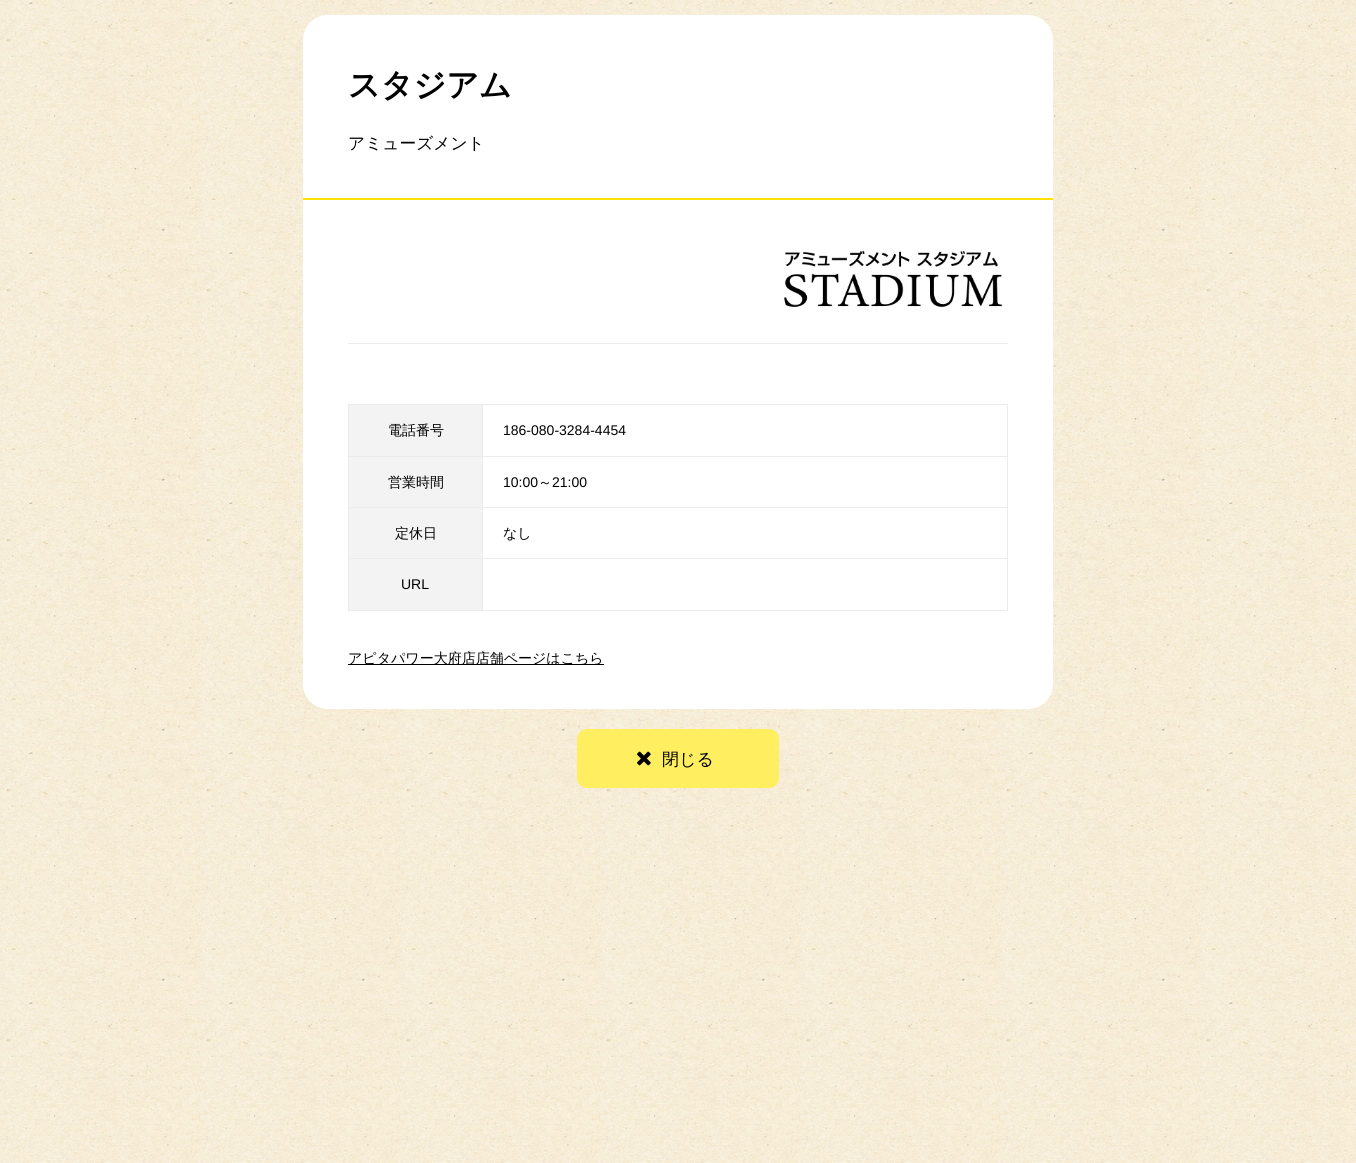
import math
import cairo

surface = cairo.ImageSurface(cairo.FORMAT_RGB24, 1356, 1163)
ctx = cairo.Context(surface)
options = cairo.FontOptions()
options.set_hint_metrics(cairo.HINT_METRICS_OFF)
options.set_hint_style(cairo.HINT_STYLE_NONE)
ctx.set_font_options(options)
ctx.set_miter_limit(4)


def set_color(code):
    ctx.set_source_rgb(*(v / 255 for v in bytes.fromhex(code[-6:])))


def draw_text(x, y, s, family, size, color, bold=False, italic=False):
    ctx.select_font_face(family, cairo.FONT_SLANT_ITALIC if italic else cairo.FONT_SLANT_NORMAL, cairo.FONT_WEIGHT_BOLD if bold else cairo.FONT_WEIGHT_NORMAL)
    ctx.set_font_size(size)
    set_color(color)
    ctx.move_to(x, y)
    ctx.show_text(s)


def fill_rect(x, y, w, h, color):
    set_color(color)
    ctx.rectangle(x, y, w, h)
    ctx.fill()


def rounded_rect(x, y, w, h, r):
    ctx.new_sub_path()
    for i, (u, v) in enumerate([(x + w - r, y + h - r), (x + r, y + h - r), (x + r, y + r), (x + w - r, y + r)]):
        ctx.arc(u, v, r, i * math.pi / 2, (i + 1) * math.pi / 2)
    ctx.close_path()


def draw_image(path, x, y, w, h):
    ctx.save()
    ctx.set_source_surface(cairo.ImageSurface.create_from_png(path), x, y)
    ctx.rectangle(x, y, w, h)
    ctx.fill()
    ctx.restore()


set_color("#ffffff")
ctx.paint()
draw_image("assets/img1.png", 0, 0, 1356, 1163)
set_color("#ffffff")
rounded_rect(303, 15, 750, 694, 25)
ctx.fill()
fill_rect(303, 198, 750, 2, "#ffe200")
draw_text(348, 96, "スタジアム", "WenQuanYi Zen Hei", 32, "#000000", bold=True)
draw_text(348, 149, "アミューズメント", "WenQuanYi Zen Hei Medium", 16.75, "#000000")
draw_image("assets/img2.png", 783, 250, 220, 58)
fill_rect(348, 343, 660, 1, "#ebebeb")
fill_rect(348, 404, 660, 1, "#ebebeb")
fill_rect(1007, 404, 1, 207, "#ebebeb")
fill_rect(348, 610, 660, 1, "#ebebeb")
fill_rect(348, 404, 1, 207, "#ebebeb")
fill_rect(349, 405, 133, 51, "#f3f3f3")
draw_text(388, 435, "電話番号", "WenQuanYi Zen Hei Medium", 14, "#000000")
fill_rect(482, 456, 526, 1, "#ebebeb")
fill_rect(482, 507, 526, 1, "#ebebeb")
fill_rect(482, 558, 526, 1, "#ebebeb")
fill_rect(482, 558, 1, 53, "#ebebeb")
fill_rect(348, 558, 135, 1, "#ebebeb")
fill_rect(482, 507, 1, 52, "#ebebeb")
fill_rect(348, 507, 135, 1, "#ebebeb")
fill_rect(482, 456, 1, 52, "#ebebeb")
fill_rect(348, 456, 135, 1, "#ebebeb")
fill_rect(482, 404, 1, 53, "#ebebeb")
draw_text(503, 435, "186-080-3284-4454", "Liberation Sans", 14, "#000000")
fill_rect(349, 457, 133, 50, "#f3f3f3")
draw_text(388, 487, "営業時間", "WenQuanYi Zen Hei Medium", 14, "#000000")
draw_text(503, 487, "10:00", "Liberation Sans", 14, "#000000")
draw_text(538, 487, "～", "WenQuanYi Zen Hei Medium", 14, "#000000")
draw_text(552, 487, "21:00", "Liberation Sans", 14, "#000000")
fill_rect(349, 508, 133, 50, "#f3f3f3")
draw_text(395, 538, "定休日", "WenQuanYi Zen Hei Medium", 14, "#000000")
draw_text(503, 538, "なし", "WenQuanYi Zen Hei Medium", 14, "#000000")
fill_rect(349, 559, 133, 51, "#f3f3f3")
draw_text(401, 589, "URL", "Liberation Sans", 14, "#000000")
fill_rect(348, 664, 256, 1, "#000000")
draw_text(348, 663, "アピタパワー大府店店舗ページはこちら", "WenQuanYi Zen Hei Medium", 14, "#000000")
set_color("#ffee60")
rounded_rect(577, 729, 202, 59, 10)
ctx.fill()
draw_image("assets/img3.png", 637, 751, 14, 15)
draw_text(662, 765, "閉じる", "WenQuanYi Zen Hei Medium", 17, "#000000")
surface.write_to_png("output.png")
